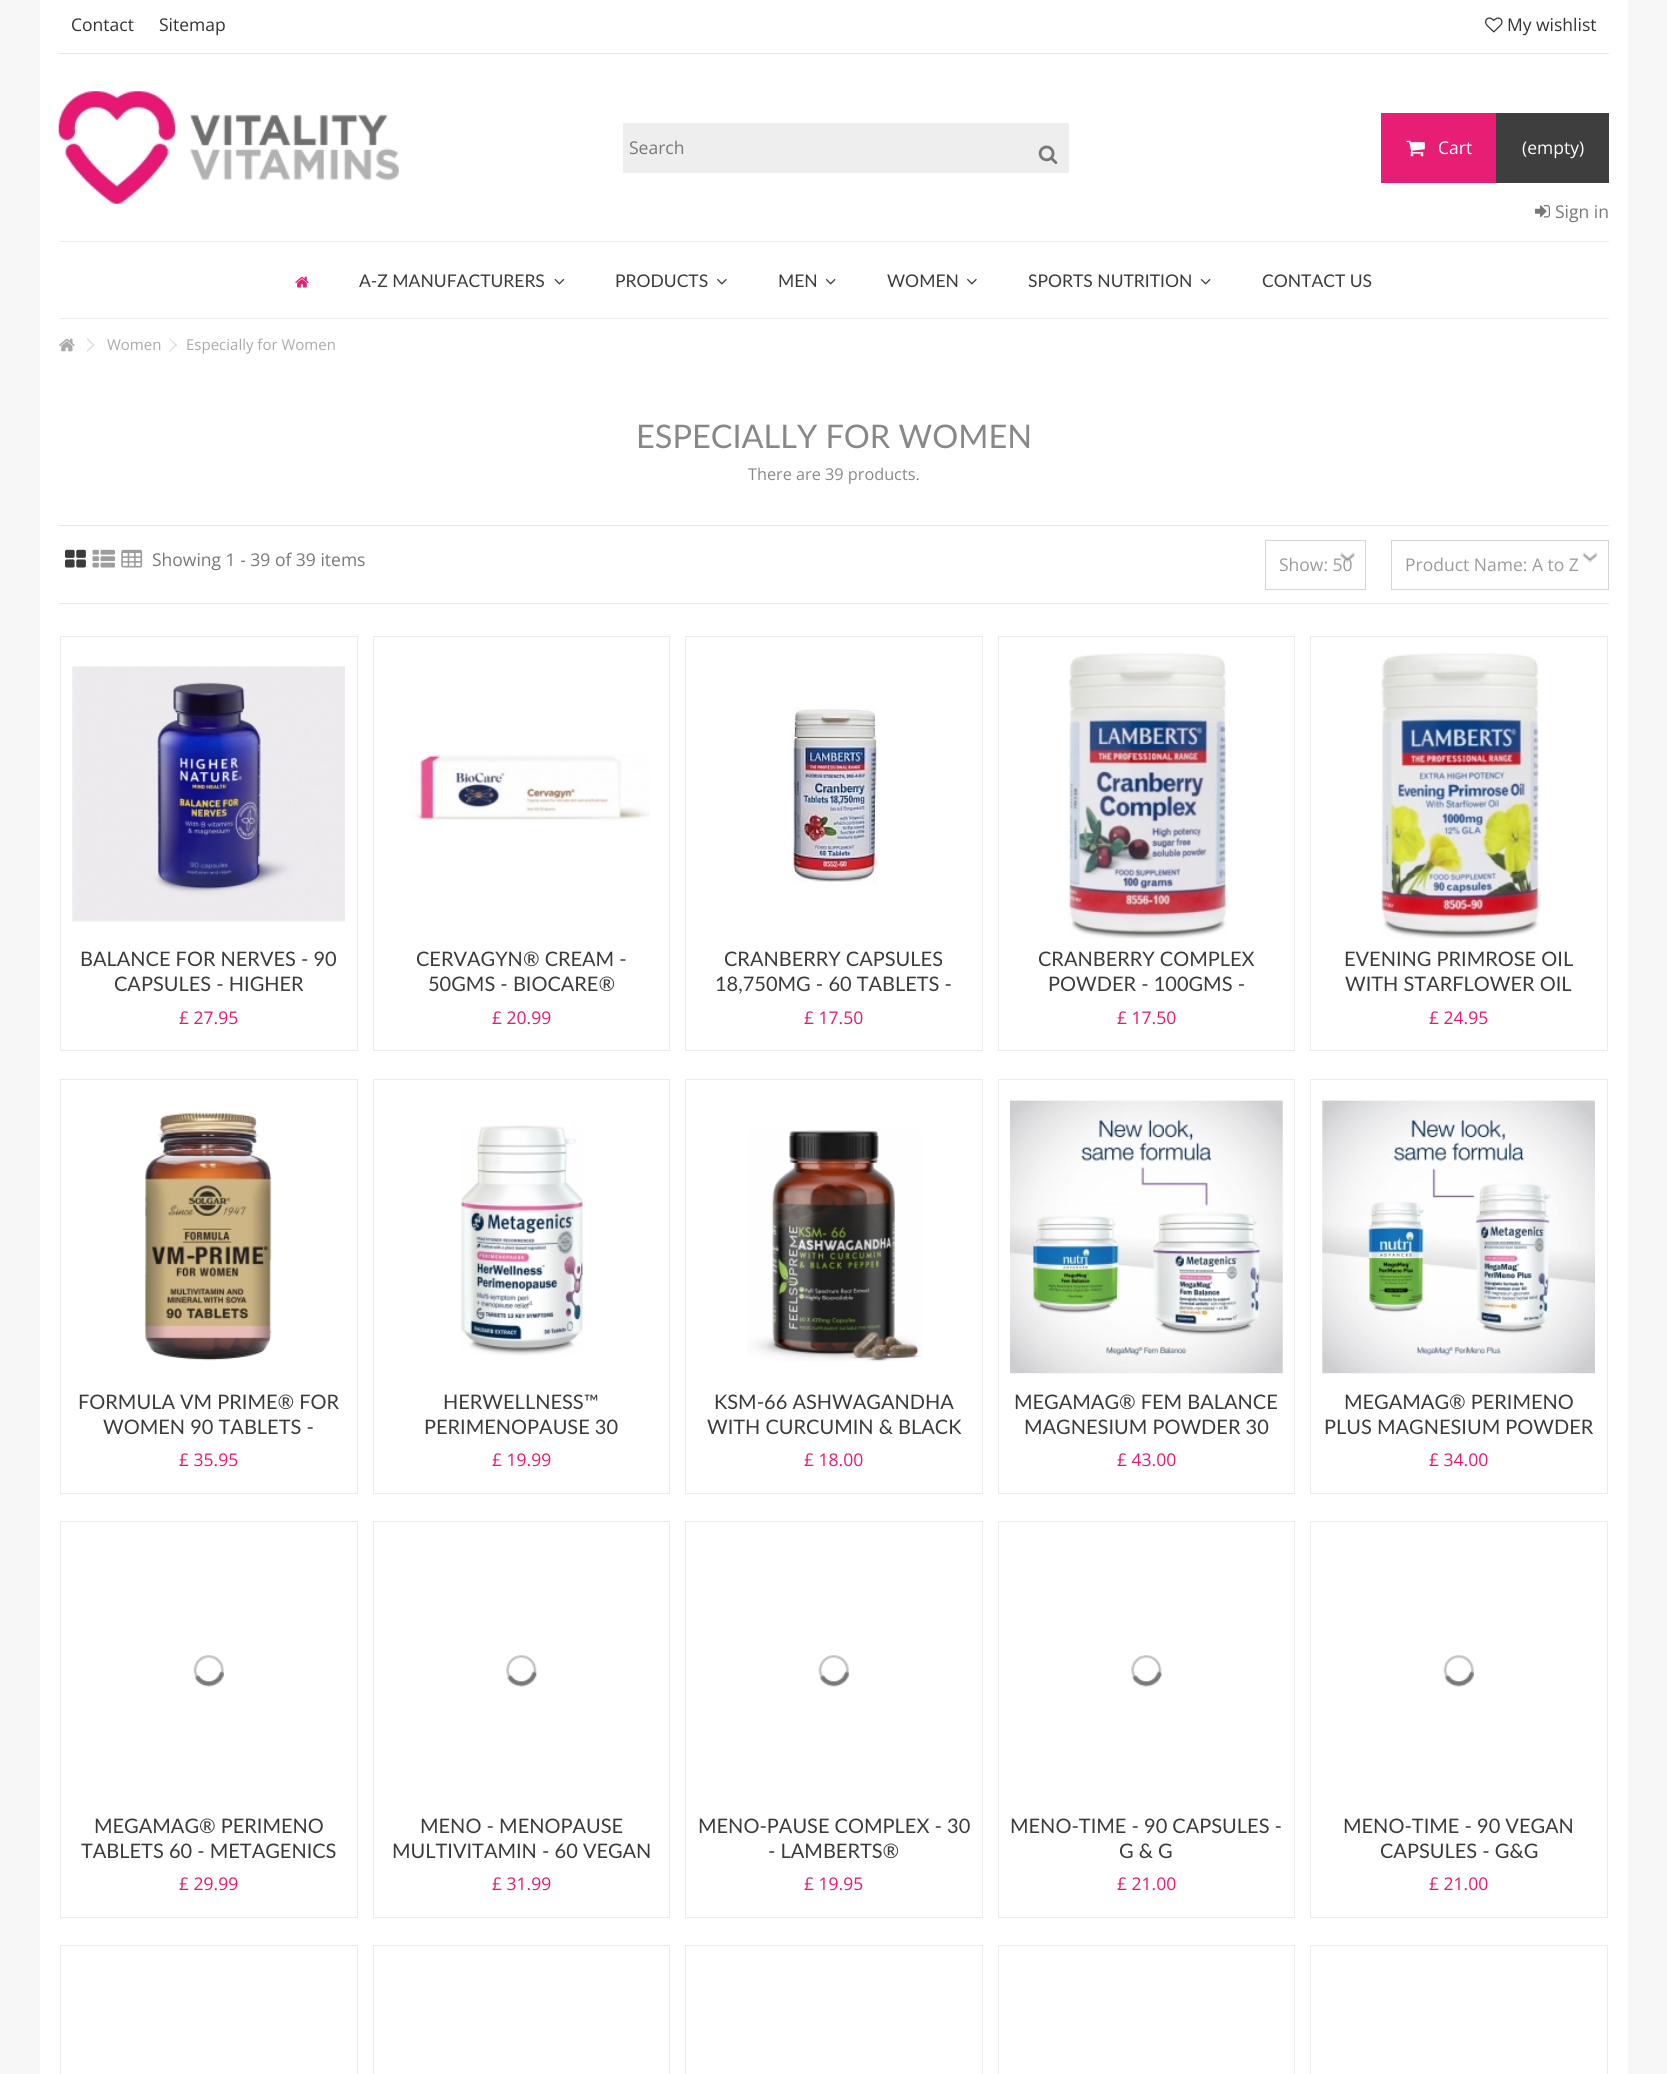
import math
import cairo

surface = cairo.ImageSurface(cairo.FORMAT_RGB24, 1667, 2074)
ctx = cairo.Context(surface)
options = cairo.FontOptions()
options.set_hint_metrics(cairo.HINT_METRICS_OFF)
options.set_hint_style(cairo.HINT_STYLE_NONE)
ctx.set_font_options(options)
ctx.set_miter_limit(4)


def set_color(code):
    ctx.set_source_rgb(*(v / 255 for v in bytes.fromhex(code[-6:])))


def draw_text(x, y, s, family, size, color, bold=False, italic=False):
    ctx.select_font_face(family, cairo.FONT_SLANT_ITALIC if italic else cairo.FONT_SLANT_NORMAL, cairo.FONT_WEIGHT_BOLD if bold else cairo.FONT_WEIGHT_NORMAL)
    ctx.set_font_size(size)
    set_color(color)
    ctx.move_to(x, y)
    ctx.show_text(s)


def fill_rect(x, y, w, h, color):
    set_color(color)
    ctx.rectangle(x, y, w, h)
    ctx.fill()


def draw_image(path, x, y, w, h):
    ctx.save()
    ctx.set_source_surface(cairo.ImageSurface.create_from_png(path), x, y)
    ctx.rectangle(x, y, w, h)
    ctx.fill()
    ctx.restore()


set_color("#f7f7f7")
ctx.paint()
fill_rect(40, 0, 1588, 2074, "#ffffff")
fill_rect(59, 53, 1550, 1, "#e7e7e7")
draw_text(71, 31, "Contact", "Open Sans", 17.5, "#333233")
draw_text(159, 31, "Sitemap", "Open Sans", 17.5, "#333233")
draw_image("assets/img1.png", 1485, 17, 18, 16)
draw_text(1507, 31, "My wishlist", "Open Sans", 17.5, "#333233")
draw_image("assets/img2.png", 58, 91, 341, 113)
fill_rect(623, 123, 446, 50, "#eeeeee")
draw_text(629, 154, "Search", "Open Sans", 17.5, "#777777")
draw_image("assets/img3.png", 1038, 145, 20, 20)
fill_rect(1381, 113, 115, 70, "#e81e74")
draw_image("assets/img4.png", 1406, 140, 19, 17)
draw_text(1438, 154, "Cart", "Open Sans", 17.5, "#ffffff")
fill_rect(1496, 113, 113, 70, "#3e3e3e")
draw_text(1522, 154, "(empty)", "Open Sans", 17.5, "#ffffff")
draw_image("assets/img5.png", 1535, 205, 15, 13)
draw_text(1555, 218, "Sign in", "Open Sans", 17.5, "#777777")
fill_rect(59, 241, 1550, 1, "#eeeeee")
fill_rect(59, 318, 1550, 1, "#eeeeee")
draw_image("assets/img6.png", 295, 276, 14, 12)
draw_text(359, 287, "A-Z MANUFACTURERS", "Lato", 17.5, "#3b3b3b")
draw_image("assets/img7.png", 554, 278, 11, 7)
draw_text(615, 287, "PRODUCTS", "Lato", 17.5, "#3b3b3b")
draw_image("assets/img8.png", 717, 278, 10, 7)
draw_text(778, 287, "MEN", "Lato", 17.5, "#3b3b3b")
draw_image("assets/img9.png", 825, 278, 11, 7)
draw_text(887, 287, "WOMEN", "Lato", 17.5, "#3b3b3b")
draw_image("assets/img8.png", 967, 278, 10, 7)
draw_text(1028, 287, "SPORTS NUTRITION", "Lato", 17.5, "#3b3b3b")
draw_image("assets/img9.png", 1200, 278, 11, 7)
draw_text(1262, 287, "CONTACT US", "Lato", 17.5, "#3b3b3b")
draw_image("assets/img10.png", 59, 338, 16, 14)
set_color("#dddddd")
ctx.new_path()
ctx.move_to(87.5, 338)
ctx.line_to(94.5, 345)
ctx.line_to(93.5, 346)
ctx.line_to(86.5, 339)
ctx.close_path()
ctx.fill()
ctx.new_path()
ctx.move_to(93.5, 344)
ctx.line_to(94.5, 345)
ctx.line_to(87.5, 352)
ctx.line_to(86.5, 351)
ctx.close_path()
ctx.fill()
draw_text(107, 350, "Women", "Open Sans", 15, "#aaaaaa")
set_color("#dddddd")
ctx.new_path()
ctx.move_to(169.5, 338)
ctx.line_to(177, 345)
ctx.line_to(176, 346)
ctx.line_to(169, 339)
ctx.close_path()
ctx.fill()
ctx.new_path()
ctx.move_to(176, 344)
ctx.line_to(177, 345)
ctx.line_to(169.5, 352)
ctx.line_to(169, 351)
ctx.close_path()
ctx.fill()
draw_text(186, 350, "Especially for Women", "Open Sans", 15, "#aaaaaa")
fill_rect(59, 525, 1550, 1, "#e7e7e7")
draw_text(636, 448, "ESPECIALLY FOR WOMEN", "Lato", 32.5, "#888888")
draw_text(748, 480, "There are 39 products.", "Open Sans", 16.25, "#888888")
fill_rect(59, 603, 1550, 1, "#e7e7e7")
draw_image("assets/img11.png", 65, 549, 21, 19)
draw_image("assets/img12.png", 92, 549, 23, 19)
draw_image("assets/img13.png", 121, 549, 22, 19)
draw_text(152, 566, "Showing 1 - 39 of 39 items", "Open Sans", 17.5, "#777777")
draw_image("assets/img14.png", 1340, 552, 15, 11)
ctx.rectangle(1265.5, 540.5, 100, 49)
set_color("#d6d4d4")
ctx.set_line_width(1)
ctx.stroke()
draw_text(1279, 571, "Show: 50", "Open Sans", 17.5, "#9c9b9b")
draw_image("assets/img15.png", 1582, 552, 16, 11)
ctx.rectangle(1391.5, 540.5, 217, 49)
set_color("#d6d4d4")
ctx.stroke()
draw_text(1405, 571, "Product Name: A to Z", "Open Sans", 17.5, "#9c9b9b")
ctx.rectangle(60.5, 636.5, 297, 414)
set_color("#ebebeb")
ctx.stroke()
draw_image("assets/img16.png", 72, 666, 273, 256)
draw_image("assets/img17.png", 72, 667, 1, 254)
draw_text(80, 966, "BALANCE FOR NERVES - 90", "Lato", 20, "#3b3b3b")
draw_text(114, 991, "CAPSULES - HIGHER", "Lato", 20, "#3b3b3b")
draw_text(179, 1024, "£ 27.95", "Open Sans", 17.5, "#e61872")
ctx.rectangle(373.5, 636.5, 296, 414)
set_color("#ebebeb")
ctx.stroke()
draw_image("assets/img18.png", 409, 754, 241, 67)
draw_text(416, 966, "CERVAGYN® CREAM -", "Lato", 20, "#3b3b3b")
draw_text(428, 991, "50GMS - BIOCARE®", "Lato", 20, "#3b3b3b")
draw_text(492, 1024, "£ 20.99", "Open Sans", 17.5, "#e61872")
ctx.rectangle(685.5, 636.5, 297, 414)
set_color("#ebebeb")
ctx.stroke()
draw_image("assets/img19.png", 787, 707, 91, 176)
draw_text(724, 966, "CRANBERRY CAPSULES", "Lato", 20, "#3b3b3b")
draw_text(715, 991, "18,750MG - 60 TABLETS -", "Lato", 20, "#3b3b3b")
draw_text(804, 1024, "£ 17.50", "Open Sans", 17.5, "#e61872")
ctx.rectangle(998.5, 636.5, 296, 414)
set_color("#ebebeb")
ctx.stroke()
draw_image("assets/img20.png", 1068, 653, 159, 286)
draw_text(1038, 966, "CRANBERRY COMPLEX", "Lato", 20, "#3b3b3b")
draw_text(1048, 991, "POWDER - 100GMS -", "Lato", 20, "#3b3b3b")
draw_text(1117, 1024, "£ 17.50", "Open Sans", 17.5, "#e61872")
ctx.rectangle(1310.5, 636.5, 297, 414)
set_color("#ebebeb")
ctx.stroke()
draw_image("assets/img21.png", 1380, 653, 160, 286)
draw_text(1344, 966, "EVENING PRIMROSE OIL", "Lato", 20, "#3b3b3b")
draw_text(1345, 991, "WITH STARFLOWER OIL", "Lato", 20, "#3b3b3b")
draw_text(1429, 1024, "£ 24.95", "Open Sans", 17.5, "#e61872")
ctx.rectangle(60.5, 1079.5, 297, 414)
set_color("#ebebeb")
ctx.stroke()
draw_image("assets/img22.png", 144, 1111, 129, 250)
draw_text(78, 1409, "FORMULA VM PRIME® FOR", "Lato", 20, "#3b3b3b")
draw_text(103, 1434, "WOMEN 90 TABLETS -", "Lato", 20, "#3b3b3b")
draw_text(179, 1466, "£ 35.95", "Open Sans", 17.5, "#e61872")
ctx.rectangle(373.5, 1079.5, 296, 414)
set_color("#ebebeb")
ctx.stroke()
draw_image("assets/img23.png", 460, 1125, 124, 231)
draw_text(443, 1409, "HERWELLNESS™", "Lato", 20, "#3b3b3b")
draw_text(424, 1434, "PERIMENOPAUSE 30", "Lato", 20, "#3b3b3b")
draw_text(492, 1466, "£ 19.99", "Open Sans", 17.5, "#e61872")
ctx.rectangle(685.5, 1079.5, 297, 414)
set_color("#ebebeb")
ctx.stroke()
draw_image("assets/img24.png", 747, 1130, 175, 232)
draw_text(714, 1409, "KSM-66 ASHWAGANDHA", "Lato", 20, "#3b3b3b")
draw_text(707, 1434, "WITH CURCUMIN & BLACK", "Lato", 20, "#3b3b3b")
draw_text(804, 1466, "£ 18.00", "Open Sans", 17.5, "#e61872")
ctx.rectangle(998.5, 1079.5, 296, 414)
set_color("#ebebeb")
ctx.stroke()
draw_image("assets/img25.png", 1010, 1100, 273, 274)
draw_image("assets/img26.png", 1282, 1100, 1, 273)
draw_text(1014, 1409, "MEGAMAG® FEM BALANCE", "Lato", 20, "#3b3b3b")
draw_text(1024, 1434, "MAGNESIUM POWDER 30", "Lato", 20, "#3b3b3b")
draw_text(1117, 1466, "£ 43.00", "Open Sans", 17.5, "#e61872")
ctx.rectangle(1310.5, 1079.5, 297, 414)
set_color("#ebebeb")
ctx.stroke()
draw_image("assets/img27.png", 1322, 1100, 273, 274)
draw_image("assets/img28.png", 1322, 1100, 1, 273)
draw_text(1344, 1409, "MEGAMAG® PERIMENO", "Lato", 20, "#3b3b3b")
draw_text(1324, 1434, "PLUS MAGNESIUM POWDER", "Lato", 20, "#3b3b3b")
draw_text(1429, 1466, "£ 34.00", "Open Sans", 17.5, "#e61872")
ctx.rectangle(60.5, 1521.5, 297, 396)
set_color("#ebebeb")
ctx.stroke()
draw_image("assets/img29.png", 193, 1655, 31, 32)
draw_text(94, 1833, "MEGAMAG® PERIMENO", "Lato", 20, "#3b3b3b")
draw_text(81, 1858, "TABLETS 60 - METAGENICS", "Lato", 20, "#3b3b3b")
draw_text(179, 1890, "£ 29.99", "Open Sans", 17.5, "#e61872")
ctx.rectangle(373.5, 1521.5, 296, 396)
set_color("#ebebeb")
ctx.stroke()
draw_image("assets/img30.png", 506, 1655, 31, 32)
draw_text(420, 1833, "MENO - MENOPAUSE", "Lato", 20, "#3b3b3b")
draw_text(392, 1858, "MULTIVITAMIN - 60 VEGAN", "Lato", 20, "#3b3b3b")
draw_text(492, 1890, "£ 31.99", "Open Sans", 17.5, "#e61872")
ctx.rectangle(685.5, 1521.5, 297, 396)
set_color("#ebebeb")
ctx.stroke()
draw_image("assets/img31.png", 818, 1655, 31, 32)
draw_text(698, 1833, "MENO-PAUSE COMPLEX - 30", "Lato", 20, "#3b3b3b")
draw_text(768, 1858, "- LAMBERTS®", "Lato", 20, "#3b3b3b")
draw_text(804, 1890, "£ 19.95", "Open Sans", 17.5, "#e61872")
ctx.rectangle(998.5, 1521.5, 296, 396)
set_color("#ebebeb")
ctx.stroke()
draw_image("assets/img32.png", 1131, 1655, 31, 32)
draw_text(1010, 1833, "MENO-TIME - 90 CAPSULES -", "Lato", 20, "#3b3b3b")
draw_text(1119, 1858, "G & G", "Lato", 20, "#3b3b3b")
draw_text(1117, 1890, "£ 21.00", "Open Sans", 17.5, "#e61872")
ctx.rectangle(1310.5, 1521.5, 297, 396)
set_color("#ebebeb")
ctx.stroke()
draw_image("assets/img29.png", 1443, 1655, 31, 32)
draw_text(1343, 1833, "MENO-TIME - 90 VEGAN", "Lato", 20, "#3b3b3b")
draw_text(1380, 1858, "CAPSULES - G&G", "Lato", 20, "#3b3b3b")
draw_text(1429, 1890, "£ 21.00", "Open Sans", 17.5, "#e61872")
ctx.rectangle(60.5, 1945.5, 297, 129)
set_color("#ebebeb")
ctx.stroke()
ctx.rectangle(373.5, 1945.5, 296, 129)
ctx.stroke()
ctx.rectangle(685.5, 1945.5, 297, 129)
ctx.stroke()
ctx.rectangle(998.5, 1945.5, 296, 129)
ctx.stroke()
ctx.rectangle(1310.5, 1945.5, 297, 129)
ctx.stroke()
surface.write_to_png("output.png")
